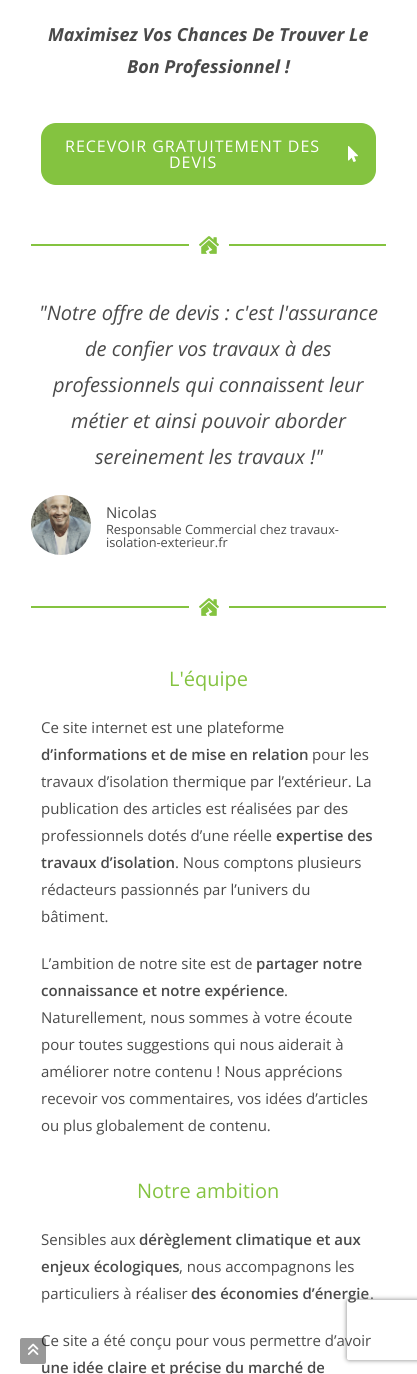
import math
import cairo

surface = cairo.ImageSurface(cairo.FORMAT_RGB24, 417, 1374)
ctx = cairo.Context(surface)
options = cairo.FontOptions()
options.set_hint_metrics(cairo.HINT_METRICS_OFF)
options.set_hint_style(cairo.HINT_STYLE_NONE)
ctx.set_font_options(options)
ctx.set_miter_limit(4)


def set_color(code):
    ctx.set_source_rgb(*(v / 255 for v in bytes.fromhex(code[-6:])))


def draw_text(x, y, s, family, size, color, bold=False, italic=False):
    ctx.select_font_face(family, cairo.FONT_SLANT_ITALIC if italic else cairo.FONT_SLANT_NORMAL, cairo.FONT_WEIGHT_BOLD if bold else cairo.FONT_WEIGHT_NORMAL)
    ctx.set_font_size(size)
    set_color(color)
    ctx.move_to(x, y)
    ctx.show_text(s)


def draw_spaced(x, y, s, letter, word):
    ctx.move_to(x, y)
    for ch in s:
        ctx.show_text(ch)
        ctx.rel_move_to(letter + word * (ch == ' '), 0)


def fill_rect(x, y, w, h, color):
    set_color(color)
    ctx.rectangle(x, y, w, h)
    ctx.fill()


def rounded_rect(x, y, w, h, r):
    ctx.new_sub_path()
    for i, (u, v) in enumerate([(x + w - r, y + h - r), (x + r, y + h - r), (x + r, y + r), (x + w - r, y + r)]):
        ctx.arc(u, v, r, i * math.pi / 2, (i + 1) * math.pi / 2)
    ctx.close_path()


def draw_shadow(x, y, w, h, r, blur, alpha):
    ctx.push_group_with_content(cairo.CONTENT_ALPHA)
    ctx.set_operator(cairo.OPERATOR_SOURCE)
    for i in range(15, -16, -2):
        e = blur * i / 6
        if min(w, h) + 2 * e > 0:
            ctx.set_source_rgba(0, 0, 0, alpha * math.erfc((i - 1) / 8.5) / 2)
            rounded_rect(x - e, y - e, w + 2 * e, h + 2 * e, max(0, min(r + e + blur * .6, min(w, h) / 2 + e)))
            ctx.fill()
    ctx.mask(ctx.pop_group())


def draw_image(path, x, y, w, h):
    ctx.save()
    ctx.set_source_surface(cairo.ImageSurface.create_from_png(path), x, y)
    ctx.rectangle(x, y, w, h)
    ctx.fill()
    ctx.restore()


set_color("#ffffff")
ctx.paint()
draw_text(48, 41, "Maximisez Vos Chances De Trouver Le", "Open Sans", 18, "#4a4a4a", bold=True, italic=True)
draw_text(127, 73, "Bon Professionnel !", "Open Sans", 18, "#4a4a4a", bold=True, italic=True)
set_color("#84c340")
rounded_rect(41, 123, 335, 62, 15)
ctx.fill()
ctx.select_font_face("Open Sans")
ctx.set_font_size(16)
set_color("#ffffff")
draw_spaced(65, 152, "RECEVOIR GRATUITEMENT DES", 1, 0)
draw_spaced(169, 168, "DEVIS", 1, 0)
draw_image("assets/img1.png", 348, 146, 10, 16)
fill_rect(31, 244, 158, 2, "#84c340")
draw_image("assets/img2.png", 199, 236, 20, 18)
fill_rect(229, 244, 157, 2, "#84c340")
draw_text(39, 320, "\"Notre offre de devis : c'est l'assurance", "Open Sans", 20, "#4a4a4a", italic=True)
draw_text(85, 356, "de confier vos travaux à des", "Open Sans", 20, "#4a4a4a", italic=True)
draw_text(53, 392, "professionnels qui connaissent leur", "Open Sans", 20, "#4a4a4a", italic=True)
draw_text(71, 428, "métier et ainsi pouvoir aborder", "Open Sans", 20, "#4a4a4a", italic=True)
draw_text(95, 464, "sereinement les travaux !\"", "Open Sans", 20, "#4a4a4a", italic=True)
draw_image("assets/img3.png", 31, 495, 60, 60)
draw_text(106, 518, "Nicolas", "Open Sans", 15, "#4a4a4a")
draw_text(106, 534, "Responsable Commercial chez travaux-", "Open Sans", 12.75, "#4a4a4a")
draw_text(106, 547, "isolation-exterieur.fr", "Open Sans", 12.75, "#4a4a4a")
fill_rect(31, 606, 158, 2, "#84c340")
draw_image("assets/img2.png", 199, 598, 20, 18)
fill_rect(229, 606, 157, 2, "#84c340")
draw_text(169, 686, "L'équipe", "Open Sans", 20, "#84c340")
draw_text(41, 733, "Ce site internet est une plateforme", "Open Sans", 15, "#4a4a4a")
draw_text(41, 760, "d’informations et de mise en relation", "Open Sans SemiBold", 15, "#4a4a4a")
draw_text(312, 760, "pour les", "Open Sans", 15, "#4a4a4a")
draw_text(41, 787, "travaux d’isolation thermique par l’extérieur. La", "Open Sans", 15, "#4a4a4a")
draw_text(41, 814, "publication des articles est réalisées par des", "Open Sans", 15, "#4a4a4a")
draw_text(41, 841, "professionnels dotés d’une réelle", "Open Sans", 15, "#4a4a4a")
draw_text(276, 841, "expertise des", "Open Sans SemiBold", 15, "#4a4a4a")
draw_text(41, 868, "travaux d’isolation", "Open Sans SemiBold", 15, "#4a4a4a")
draw_text(175, 868, ". Nous comptons plusieurs", "Open Sans", 15, "#4a4a4a")
draw_text(41, 895, "rédacteurs passionnés par l’univers du", "Open Sans", 15, "#4a4a4a")
draw_text(41, 922, "bâtiment.", "Open Sans", 15, "#4a4a4a")
draw_text(41, 969, "L’ambition de notre site est de", "Open Sans", 15, "#4a4a4a")
draw_text(256, 969, "partager notre", "Open Sans SemiBold", 15, "#4a4a4a")
draw_text(41, 996, "connaissance et notre expérience", "Open Sans SemiBold", 15, "#4a4a4a")
draw_text(284, 996, ".", "Open Sans", 15, "#4a4a4a")
draw_text(41, 1023, "Naturellement, nous sommes à votre écoute", "Open Sans", 15, "#4a4a4a")
draw_text(41, 1050, "pour toutes suggestions qui nous aiderait à", "Open Sans", 15, "#4a4a4a")
draw_text(41, 1077, "améliorer notre contenu ! Nous apprécions", "Open Sans", 15, "#4a4a4a")
draw_text(41, 1104, "recevoir vos commentaires, vos idées d’articles", "Open Sans", 15, "#4a4a4a")
draw_text(41, 1131, "ou plus globalement de contenu.", "Open Sans", 15, "#4a4a4a")
draw_text(137, 1198, "Notre ambition", "Open Sans", 20, "#84c340")
draw_text(41, 1245, "Sensibles aux", "Open Sans", 15, "#4a4a4a")
draw_text(139, 1245, "dérèglement climatique et aux", "Open Sans SemiBold", 15, "#4a4a4a")
draw_text(41, 1272, "enjeux écologiques", "Open Sans SemiBold", 15, "#4a4a4a")
draw_text(179, 1272, ", nous accompagnons les", "Open Sans", 15, "#4a4a4a")
draw_text(41, 1299, "particuliers à réaliser", "Open Sans", 15, "#4a4a4a")
draw_text(191, 1299, "des économies d’énergie", "Open Sans SemiBold", 15, "#4a4a4a")
draw_text(370, 1299, ".", "Open Sans", 15, "#4a4a4a")
draw_text(41, 1346, "Ce site a été conçu pour vous permettre d’avoir", "Open Sans", 15, "#4a4a4a")
draw_text(41, 1373, "une idée claire et précise du marché de", "Open Sans SemiBold", 15, "#4a4a4a")
ctx.set_source_rgba(0, 0, 0, 0.4)
rounded_rect(20, 1338, 26, 26, 2)
ctx.fill()
draw_image("assets/img4.png", 28, 1343, 11, 12)
ctx.save()
ctx.set_fill_rule(cairo.FILL_RULE_EVEN_ODD)
ctx.new_path()
ctx.move_to(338, 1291)
ctx.line_to(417, 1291)
ctx.line_to(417, 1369)
ctx.line_to(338, 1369)
ctx.close_path()
ctx.move_to(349, 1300)
ctx.line_to(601, 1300)
ctx.curve_to(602, 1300, 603, 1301, 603, 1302)
ctx.line_to(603, 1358)
ctx.curve_to(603, 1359, 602, 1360, 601, 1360)
ctx.line_to(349, 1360)
ctx.curve_to(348, 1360, 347, 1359, 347, 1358)
ctx.line_to(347, 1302)
ctx.curve_to(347, 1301, 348, 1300, 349, 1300)
ctx.close_path()
ctx.clip()
set_color("#808080")
draw_shadow(347, 1300, 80, 60, 2, 2.5, 1)
ctx.restore()
surface.write_to_png("output.png")
